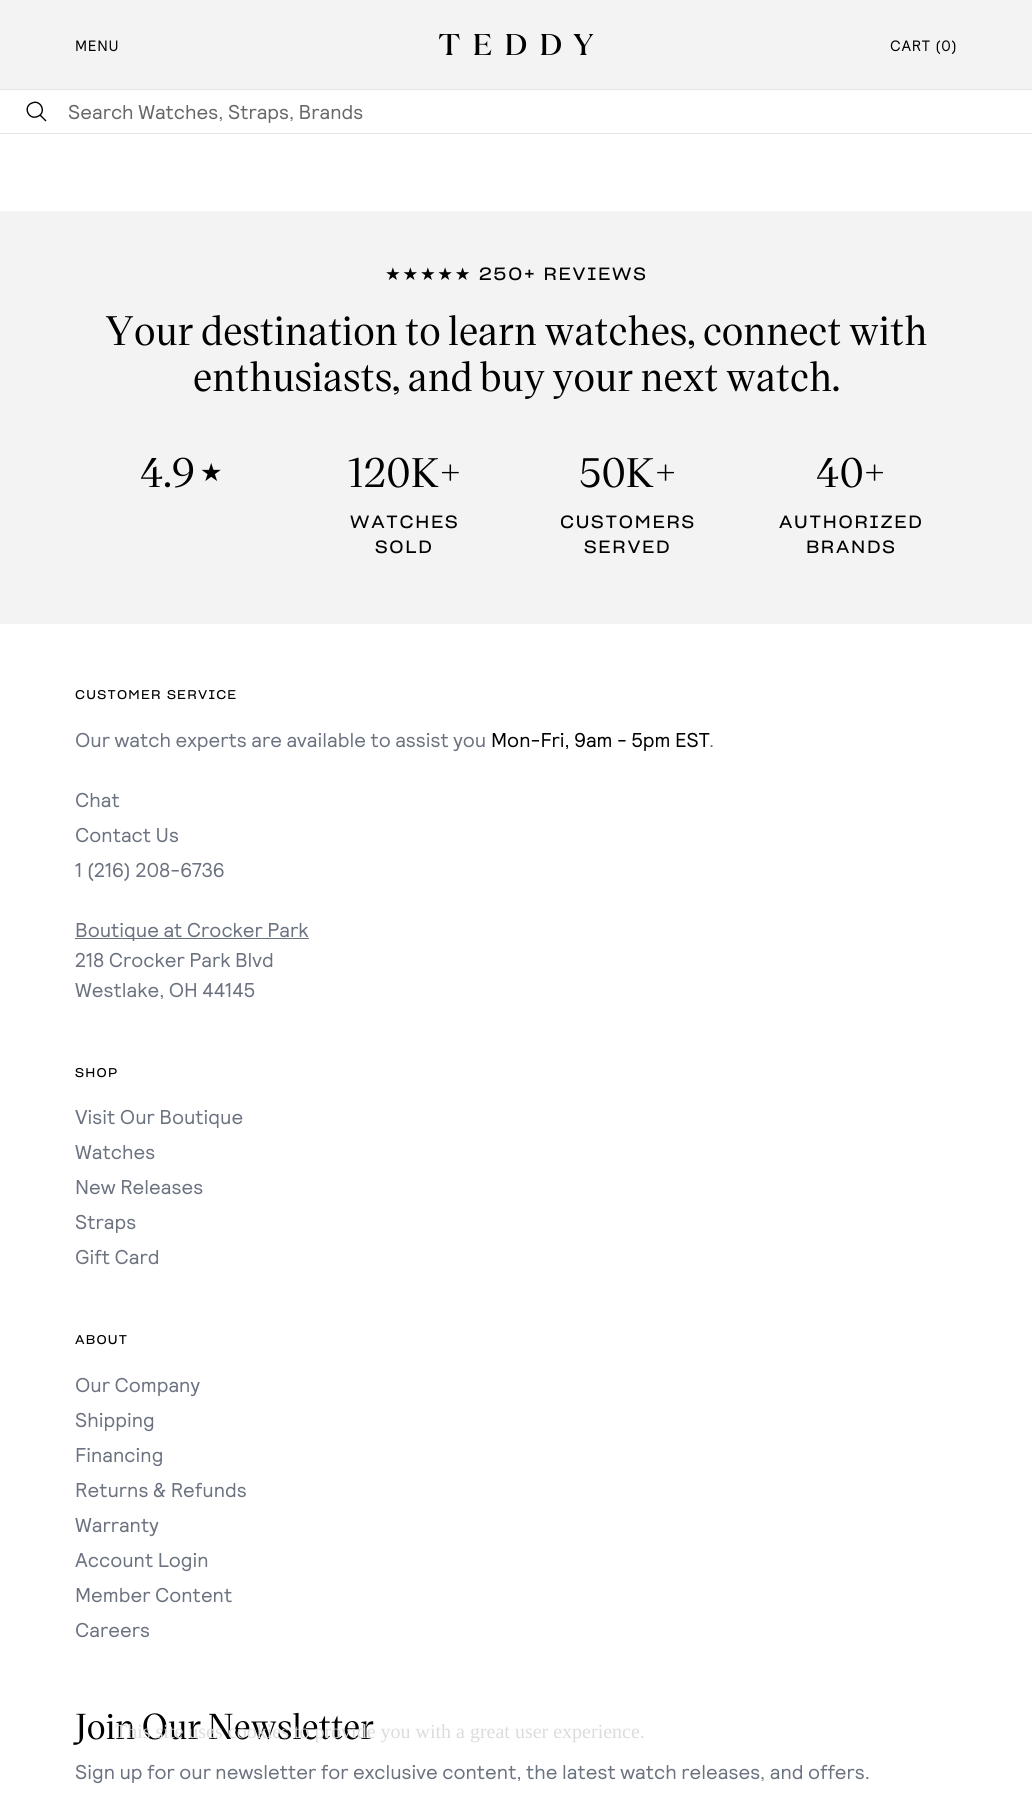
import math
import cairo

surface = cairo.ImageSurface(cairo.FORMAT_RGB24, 1032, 1811)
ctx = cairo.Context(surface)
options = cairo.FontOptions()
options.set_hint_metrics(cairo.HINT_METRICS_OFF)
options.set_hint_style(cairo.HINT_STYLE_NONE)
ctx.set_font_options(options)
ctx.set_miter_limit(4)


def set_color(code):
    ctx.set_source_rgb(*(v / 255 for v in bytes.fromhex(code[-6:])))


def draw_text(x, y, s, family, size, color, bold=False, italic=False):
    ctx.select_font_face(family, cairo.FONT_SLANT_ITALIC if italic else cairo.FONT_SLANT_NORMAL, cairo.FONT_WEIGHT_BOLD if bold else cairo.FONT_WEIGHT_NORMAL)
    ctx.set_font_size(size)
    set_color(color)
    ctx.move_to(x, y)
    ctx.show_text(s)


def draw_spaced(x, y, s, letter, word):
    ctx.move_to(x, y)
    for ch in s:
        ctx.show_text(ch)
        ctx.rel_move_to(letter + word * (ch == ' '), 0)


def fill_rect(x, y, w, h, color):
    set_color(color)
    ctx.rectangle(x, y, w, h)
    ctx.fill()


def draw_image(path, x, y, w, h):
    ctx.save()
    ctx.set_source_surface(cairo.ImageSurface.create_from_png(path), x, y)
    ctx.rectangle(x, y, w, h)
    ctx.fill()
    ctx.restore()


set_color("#ffffff")
ctx.paint()
fill_rect(0, 0, 1032, 89, "#f3f3f3")
fill_rect(0, 89, 1032, 1, "#e4e4e4")
ctx.select_font_face("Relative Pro")
ctx.set_font_size(15)
set_color("#000000")
draw_spaced(75, 51, "MENU", 0.75, 0)
draw_image("assets/img1.png", 439, 33, 155, 22)
draw_spaced(890, 51, "CART (0)", 0.75, 0)
fill_rect(0, 133, 1032, 1, "#e4e4e4")
ctx.new_path()
ctx.move_to(32, 103)
ctx.curve_to(41, 99, 47, 113, 37.5, 116.5)
ctx.curve_to(28.5, 120.5, 22.5, 106.5, 32, 103)
ctx.close_path()
ctx.move_to(40, 115)
ctx.line_to(46, 121)
set_color("#000000")
ctx.set_line_width(1.4)
ctx.set_line_join(cairo.LINE_JOIN_ROUND)
ctx.stroke()
draw_text(68, 119, "Search Watches, Straps, Brands", "Relative Pro", 20, "#686868")
fill_rect(0, 211, 1032, 413, "#f3f3f3")
ctx.select_font_face("DejaVu Sans")
ctx.set_font_size(17.5)
set_color("#000000")
draw_spaced(385, 280, "★★★★★", 1.75, 0)
ctx.select_font_face("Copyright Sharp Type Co")
draw_spaced(479, 280, "250+ REVIEWS", 1.75, 0)
draw_text(105, 345, "Your destination to learn watches, connect with", "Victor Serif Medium", 40, "#000000")
draw_text(193, 391, "enthusiasts, and buy your next watch.", "Victor Serif Medium", 40, "#000000")
draw_text(140, 487, "4.9", "Victor Serif Medium", 40, "#000000")
draw_text(200, 481, "★", "DejaVu Sans", 25, "#000000")
draw_text(348, 487, "120K+", "Victor Serif Medium", 40, "#000000")
ctx.select_font_face("Copyright Sharp Type Co")
ctx.set_font_size(17.5)
draw_spaced(350, 528, "WATCHES", 1.75, 0)
draw_spaced(375, 553, "SOLD", 1.75, 0)
draw_text(579, 487, "50K+", "Victor Serif Medium", 40, "#000000")
ctx.select_font_face("Copyright Sharp Type Co")
ctx.set_font_size(17.5)
draw_spaced(560, 528, "CUSTOMERS", 1.75, 0)
draw_spaced(584, 553, "SERVED", 1.75, 0)
draw_text(816, 487, "40+", "Victor Serif Medium", 40, "#000000")
ctx.select_font_face("Copyright Sharp Type Co")
ctx.set_font_size(17.5)
draw_spaced(779, 528, "AUTHORIZED", 1.75, 0)
draw_spaced(806, 553, "BRANDS", 1.75, 0)
ctx.set_font_size(12.5)
draw_spaced(75, 699, "CUSTOMER SERVICE", 1.25, 0)
draw_text(75, 747, "Our watch experts are available to assist you", "Relative Pro", 20, "#6b7280")
draw_text(491, 747, "Mon-Fri, 9am - 5pm EST", "Relative Pro", 20, "#000000")
draw_text(709, 747, ".", "Relative Pro", 20, "#6b7280")
draw_text(75, 807, "Chat", "Relative Pro", 20, "#6b7280")
draw_text(75, 842, "Contact Us", "Relative Pro", 20, "#6b7280")
draw_text(75, 877, "1 (216) 208-6736", "Relative Pro", 20, "#6b7280")
fill_rect(75, 938, 234, 1, "#6b7280")
draw_text(75, 937, "Boutique at Crocker Park", "Relative Pro", 20, "#6b7280")
draw_text(75, 967, "218 Crocker Park Blvd", "Relative Pro", 20, "#6b7280")
draw_text(75, 997, "Westlake, OH 44145", "Relative Pro", 20, "#6b7280")
ctx.select_font_face("Copyright Sharp Type Co")
ctx.set_font_size(12.5)
set_color("#000000")
draw_spaced(75, 1077, "SHOP", 1.25, 0)
draw_text(75, 1124, "Visit Our Boutique", "Relative Pro", 20, "#6b7280")
draw_text(75, 1159, "Watches", "Relative Pro", 20, "#6b7280")
draw_text(75, 1194, "New Releases", "Relative Pro", 20, "#6b7280")
draw_text(75, 1229, "Straps", "Relative Pro", 20, "#6b7280")
draw_text(75, 1264, "Gift Card", "Relative Pro", 20, "#6b7280")
ctx.select_font_face("Copyright Sharp Type Co")
ctx.set_font_size(12.5)
set_color("#000000")
draw_spaced(75, 1344, "ABOUT", 1.25, 0)
draw_text(75, 1392, "Our Company", "Relative Pro", 20, "#6b7280")
draw_text(75, 1427, "Shipping", "Relative Pro", 20, "#6b7280")
draw_text(75, 1462, "Financing", "Relative Pro", 20, "#6b7280")
draw_text(75, 1497, "Returns & Refunds", "Relative Pro", 20, "#6b7280")
draw_text(75, 1532, "Warranty", "Relative Pro", 20, "#6b7280")
draw_text(75, 1567, "Account Login", "Relative Pro", 20, "#6b7280")
draw_text(75, 1602, "Member Content", "Relative Pro", 20, "#6b7280")
draw_text(75, 1637, "Careers", "Relative Pro", 20, "#6b7280")
draw_text(75, 1739, "Join Our Newsletter", "Victor Serif Medium", 35, "#000000")
draw_text(75, 1779, "Sign up for our newsletter for exclusive content, the latest watch releases, and offers.", "Relative Pro", 20, "#6b7280")
draw_text(115, 1738, "This site uses cookies to provide you with a great user experience.", "Liberation Serif", 20, "#dcdcdc")
surface.write_to_png("output.png")
